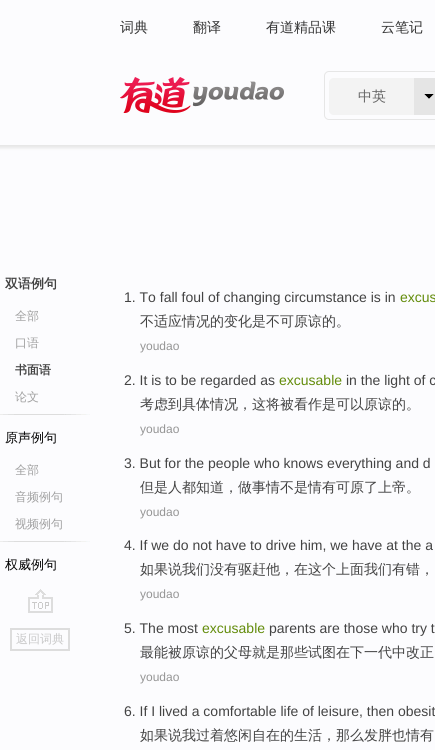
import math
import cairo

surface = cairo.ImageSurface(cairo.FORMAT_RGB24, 435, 750)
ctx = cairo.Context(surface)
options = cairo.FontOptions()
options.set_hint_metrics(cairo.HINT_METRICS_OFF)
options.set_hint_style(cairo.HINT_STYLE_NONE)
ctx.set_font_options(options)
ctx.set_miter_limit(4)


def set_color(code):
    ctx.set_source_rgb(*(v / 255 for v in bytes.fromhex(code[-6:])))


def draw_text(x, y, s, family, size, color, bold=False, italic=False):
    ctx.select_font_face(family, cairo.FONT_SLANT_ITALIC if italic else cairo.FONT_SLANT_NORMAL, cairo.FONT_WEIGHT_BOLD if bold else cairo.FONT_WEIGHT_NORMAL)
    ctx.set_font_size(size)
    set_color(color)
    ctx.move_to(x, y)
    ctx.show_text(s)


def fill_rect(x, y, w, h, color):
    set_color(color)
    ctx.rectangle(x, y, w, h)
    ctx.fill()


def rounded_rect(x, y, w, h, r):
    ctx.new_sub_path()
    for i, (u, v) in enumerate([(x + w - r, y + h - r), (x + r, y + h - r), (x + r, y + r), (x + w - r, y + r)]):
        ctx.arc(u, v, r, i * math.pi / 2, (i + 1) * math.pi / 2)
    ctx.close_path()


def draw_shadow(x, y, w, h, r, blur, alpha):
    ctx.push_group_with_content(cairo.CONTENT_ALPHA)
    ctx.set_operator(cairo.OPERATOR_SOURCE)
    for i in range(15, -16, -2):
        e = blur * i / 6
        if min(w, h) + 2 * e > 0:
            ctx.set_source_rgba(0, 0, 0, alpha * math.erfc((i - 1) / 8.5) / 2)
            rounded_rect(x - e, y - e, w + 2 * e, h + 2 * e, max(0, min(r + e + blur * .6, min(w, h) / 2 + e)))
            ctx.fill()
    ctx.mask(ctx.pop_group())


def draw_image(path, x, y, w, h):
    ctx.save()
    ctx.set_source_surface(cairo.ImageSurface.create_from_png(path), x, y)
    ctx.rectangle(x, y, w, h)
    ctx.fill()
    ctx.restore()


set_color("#fcfcfe")
ctx.paint()
ctx.save()
ctx.rectangle(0, 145, 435, 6)
ctx.clip()
set_color("#e6e6e6")
draw_shadow(-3, -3, 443, 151, 0, 1.5, 1)
ctx.restore()
draw_text(120, 32, "词典", "WenQuanYi Zen Hei Medium", 14, "#333333")
draw_text(193, 32, "翻译", "WenQuanYi Zen Hei Medium", 14, "#333333")
draw_text(266, 32, "有道精品课", "WenQuanYi Zen Hei Medium", 14, "#333333")
draw_text(381, 32, "云笔记", "WenQuanYi Zen Hei Medium", 14, "#333333")
draw_image("assets/img1.png", 120, 77, 164, 36)
rounded_rect(324.5, 71.5, 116, 48, 4.5)
set_color("#e6e6e6")
ctx.set_line_width(1)
ctx.stroke()
set_color("#f3f3f3")
ctx.new_path()
ctx.move_to(334, 78)
ctx.line_to(414, 78)
ctx.line_to(414, 115)
ctx.line_to(334, 115)
ctx.curve_to(331, 115, 329, 113, 329, 110)
ctx.line_to(329, 83)
ctx.curve_to(329, 80, 331, 78, 334, 78)
ctx.close_path()
ctx.fill()
draw_text(358, 101, "中英", "WenQuanYi Zen Hei Medium", 14, "#656565")
fill_rect(414, 78, 21, 37, "#e5e5e5")
set_color("#000000")
ctx.new_path()
ctx.move_to(424, 94)
ctx.line_to(434, 94)
ctx.line_to(429, 99)
ctx.close_path()
ctx.fill()
set_color("#e5e5e5")
ctx.new_path()
ctx.move_to(434, 94)
ctx.line_to(434, 104)
ctx.line_to(429, 99)
ctx.close_path()
ctx.move_to(424, 104)
ctx.line_to(424, 94)
ctx.line_to(429, 99)
ctx.close_path()
ctx.fill()
draw_text(5, 288, "双语例句", "WenQuanYi Zen Hei", 13, "#434343", bold=True)
draw_text(15, 320, "全部", "WenQuanYi Zen Hei Medium", 12, "#a0a0a0")
draw_text(15, 347, "口语", "WenQuanYi Zen Hei Medium", 12, "#a0a0a0")
draw_text(15, 374, "书面语", "WenQuanYi Zen Hei", 12, "#434343", bold=True)
draw_text(15, 401, "论文", "WenQuanYi Zen Hei Medium", 12, "#a0a0a0")
draw_image("assets/img2.png", 0, 414, 90, 1)
draw_text(5, 442, "原声例句", "WenQuanYi Zen Hei Medium", 13, "#000000")
draw_text(15, 474, "全部", "WenQuanYi Zen Hei Medium", 12, "#a0a0a0")
draw_text(15, 501, "音频例句", "WenQuanYi Zen Hei Medium", 12, "#a0a0a0")
draw_text(15, 528, "视频例句", "WenQuanYi Zen Hei Medium", 12, "#a0a0a0")
draw_image("assets/img2.png", 0, 541, 90, 1)
draw_text(5, 569, "权威例句", "WenQuanYi Zen Hei Medium", 13, "#000000")
draw_image("assets/img3.png", 28, 589, 25, 24)
ctx.rectangle(11, 629, 58, 21)
set_color("#dddddd")
ctx.set_line_width(2)
ctx.stroke()
draw_text(16, 643, "返回词典", "WenQuanYi Zen Hei Medium", 12, "#c9c9c9")
draw_text(124, 302, "1. To fall foul of changing circumstance is in", "Liberation Sans", 14, "#434343")
draw_text(400, 302, "excus", "Liberation Sans", 14, "#638c0b")
draw_text(140, 326, "不适应情况的变化是不可原谅的。", "WenQuanYi Zen Hei Medium", 14, "#434343")
draw_text(140, 350, "youdao", "Liberation Sans", 12, "#959595")
draw_text(124, 385, "2. It is to be regarded as", "Liberation Sans", 14, "#434343")
draw_text(279, 385, "excusable", "Liberation Sans", 14, "#638c0b")
draw_text(346, 385, "in the light of c", "Liberation Sans", 14, "#434343")
draw_text(140, 409, "考虑到具体情况，这将被看作是可以原谅的。", "WenQuanYi Zen Hei Medium", 14, "#434343")
draw_text(140, 433, "youdao", "Liberation Sans", 12, "#959595")
draw_text(124, 468, "3. But for the people who knows everything and d", "Liberation Sans", 14, "#434343")
draw_text(140, 492, "但是人都知道，做事情不是情有可原了上帝。", "WenQuanYi Zen Hei Medium", 14, "#434343")
draw_text(140, 516, "youdao", "Liberation Sans", 12, "#959595")
draw_text(124, 550, "4. If we do not have to drive him, we have at the a", "Liberation Sans", 14, "#434343")
draw_text(140, 574, "如果说我们没有驱赶他，在这个上面我们有错，", "WenQuanYi Zen Hei Medium", 14, "#434343")
draw_text(140, 598, "youdao", "Liberation Sans", 12, "#959595")
draw_text(124, 633, "5. The most", "Liberation Sans", 14, "#434343")
draw_text(202, 633, "excusable", "Liberation Sans", 14, "#638c0b")
draw_text(269, 633, "parents are those who try t", "Liberation Sans", 14, "#434343")
draw_text(140, 657, "最能被原谅的父母就是那些试图在下一代中改正", "WenQuanYi Zen Hei Medium", 14, "#434343")
draw_text(140, 681, "youdao", "Liberation Sans", 12, "#959595")
draw_text(124, 716, "6. If I lived a comfortable life of leisure, then obesit", "Liberation Sans", 14, "#434343")
draw_text(140, 740, "如果说我过着悠闲自在的生活，那么发胖也情有", "WenQuanYi Zen Hei Medium", 14, "#434343")
surface.write_to_png("output.png")
